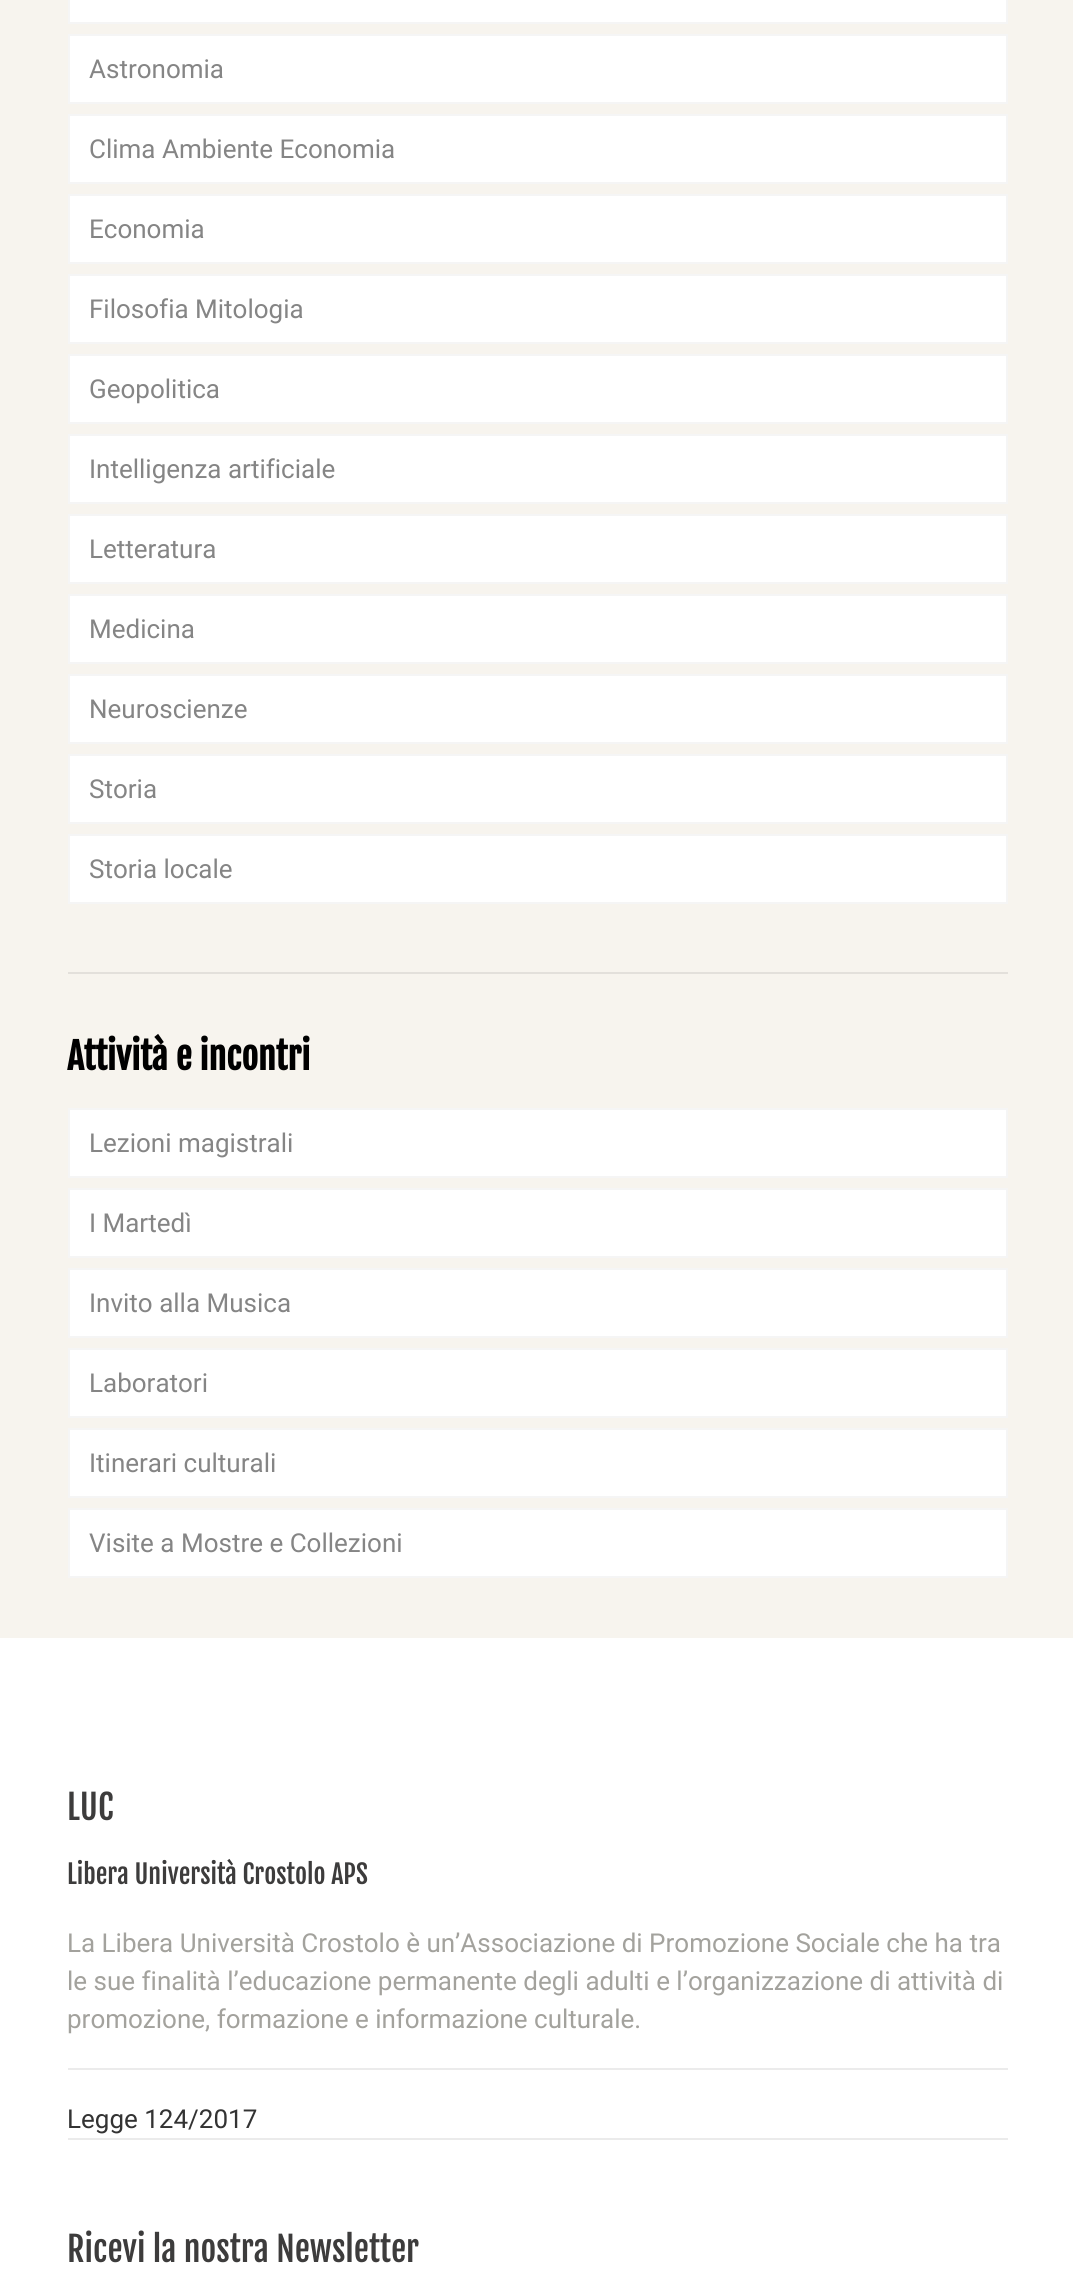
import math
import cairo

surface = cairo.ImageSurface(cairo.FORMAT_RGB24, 1073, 2279)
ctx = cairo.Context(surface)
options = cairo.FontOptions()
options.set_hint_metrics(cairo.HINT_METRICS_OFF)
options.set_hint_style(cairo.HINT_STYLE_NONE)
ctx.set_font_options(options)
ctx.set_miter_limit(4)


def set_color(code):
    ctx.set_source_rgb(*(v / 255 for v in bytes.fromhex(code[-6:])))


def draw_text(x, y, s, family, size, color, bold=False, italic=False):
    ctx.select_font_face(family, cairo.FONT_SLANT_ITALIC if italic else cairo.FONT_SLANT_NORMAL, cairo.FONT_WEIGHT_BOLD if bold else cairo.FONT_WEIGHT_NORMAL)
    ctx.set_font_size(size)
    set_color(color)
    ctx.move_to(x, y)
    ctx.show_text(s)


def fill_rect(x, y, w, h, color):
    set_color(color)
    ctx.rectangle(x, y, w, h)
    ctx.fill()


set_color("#f7f4ee")
ctx.paint()
set_color("#ffffff")
ctx.rectangle(69, -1, 938, 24)
ctx.fill_preserve()
set_color("#f5f5f5")
ctx.stroke()
set_color("#ffffff")
ctx.rectangle(69, 35, 938, 68)
ctx.fill_preserve()
set_color("#f5f5f5")
ctx.stroke()
draw_text(89, 78, "Astronomia", "Roboto", 26, "#858585")
set_color("#ffffff")
ctx.rectangle(69, 115, 938, 68)
ctx.fill_preserve()
set_color("#f5f5f5")
ctx.stroke()
draw_text(89, 158, "Clima Ambiente Economia", "Roboto", 26, "#858585")
set_color("#ffffff")
ctx.rectangle(69, 195, 938, 68)
ctx.fill_preserve()
set_color("#f5f5f5")
ctx.stroke()
draw_text(89, 238, "Economia", "Roboto", 26, "#858585")
set_color("#ffffff")
ctx.rectangle(69, 275, 938, 68)
ctx.fill_preserve()
set_color("#f5f5f5")
ctx.stroke()
draw_text(89, 318, "Filosofia Mitologia", "Roboto", 26, "#858585")
set_color("#ffffff")
ctx.rectangle(69, 355, 938, 68)
ctx.fill_preserve()
set_color("#f5f5f5")
ctx.stroke()
draw_text(89, 398, "Geopolitica", "Roboto", 26, "#858585")
set_color("#ffffff")
ctx.rectangle(69, 435, 938, 68)
ctx.fill_preserve()
set_color("#f5f5f5")
ctx.stroke()
draw_text(89, 478, "Intelligenza artificiale", "Roboto", 26, "#858585")
set_color("#ffffff")
ctx.rectangle(69, 515, 938, 68)
ctx.fill_preserve()
set_color("#f5f5f5")
ctx.stroke()
draw_text(89, 558, "Letteratura", "Roboto", 26, "#858585")
set_color("#ffffff")
ctx.rectangle(69, 595, 938, 68)
ctx.fill_preserve()
set_color("#f5f5f5")
ctx.stroke()
draw_text(89, 638, "Medicina", "Roboto", 26, "#858585")
set_color("#ffffff")
ctx.rectangle(69, 675, 938, 68)
ctx.fill_preserve()
set_color("#f5f5f5")
ctx.stroke()
draw_text(89, 718, "Neuroscienze", "Roboto", 26, "#858585")
set_color("#ffffff")
ctx.rectangle(69, 755, 938, 68)
ctx.fill_preserve()
set_color("#f5f5f5")
ctx.stroke()
draw_text(89, 798, "Storia", "Roboto", 26, "#858585")
set_color("#ffffff")
ctx.rectangle(69, 835, 938, 68)
ctx.fill_preserve()
set_color("#f5f5f5")
ctx.stroke()
draw_text(89, 878, "Storia locale", "Roboto", 26, "#858585")
fill_rect(68, 972, 940, 2, "#e3e0db")
draw_text(67, 1070, "Attività e incontri", "Fjalla One", 36, "#000000", bold=True)
set_color("#ffffff")
ctx.rectangle(69, 1109, 938, 68)
ctx.fill_preserve()
set_color("#f5f5f5")
ctx.stroke()
draw_text(89, 1152, "Lezioni magistrali", "Roboto", 26, "#858585")
set_color("#ffffff")
ctx.rectangle(69, 1189, 938, 68)
ctx.fill_preserve()
set_color("#f5f5f5")
ctx.stroke()
draw_text(89, 1232, "I Martedì", "Roboto", 26, "#858585")
set_color("#ffffff")
ctx.rectangle(69, 1269, 938, 68)
ctx.fill_preserve()
set_color("#f5f5f5")
ctx.stroke()
draw_text(89, 1312, "Invito alla Musica", "Roboto", 26, "#858585")
set_color("#ffffff")
ctx.rectangle(69, 1349, 938, 68)
ctx.fill_preserve()
set_color("#f5f5f5")
ctx.stroke()
draw_text(89, 1392, "Laboratori", "Roboto", 26, "#858585")
set_color("#ffffff")
ctx.rectangle(69, 1429, 938, 68)
ctx.fill_preserve()
set_color("#f5f5f5")
ctx.stroke()
draw_text(89, 1472, "Itinerari culturali", "Roboto", 26, "#858585")
set_color("#ffffff")
ctx.rectangle(69, 1509, 938, 68)
ctx.fill_preserve()
set_color("#f5f5f5")
ctx.stroke()
draw_text(89, 1552, "Visite a Mostre e Collezioni", "Roboto", 26, "#858585")
fill_rect(0, 1638, 1073, 641, "#ffffff")
draw_text(67, 1820, "LUC", "Fjalla One", 34, "#3d3c3c")
draw_text(67, 1884, "Libera Università Crostolo APS", "Fjalla One", 26, "#3d3c3c")
draw_text(67, 1952, "La Libera Università Crostolo è un’Associazione di Promozione Sociale che ha tra", "Roboto", 26, "#a3a29d")
draw_text(67, 1990, "le sue finalità l’educazione permanente degli adulti e l’organizzazione di attività di", "Roboto", 26, "#a3a29d")
draw_text(67, 2028, "promozione, formazione e informazione culturale.", "Roboto", 26, "#a3a29d")
fill_rect(68, 2068, 940, 2, "#ebebeb")
draw_text(67, 2128, "Legge 124/2017", "Roboto", 26, "#333333")
fill_rect(68, 2138, 940, 2, "#ebebeb")
draw_text(67, 2262, "Ricevi la nostra Newsletter", "Fjalla One", 34, "#3d3c3c")
surface.write_to_png("output.png")
